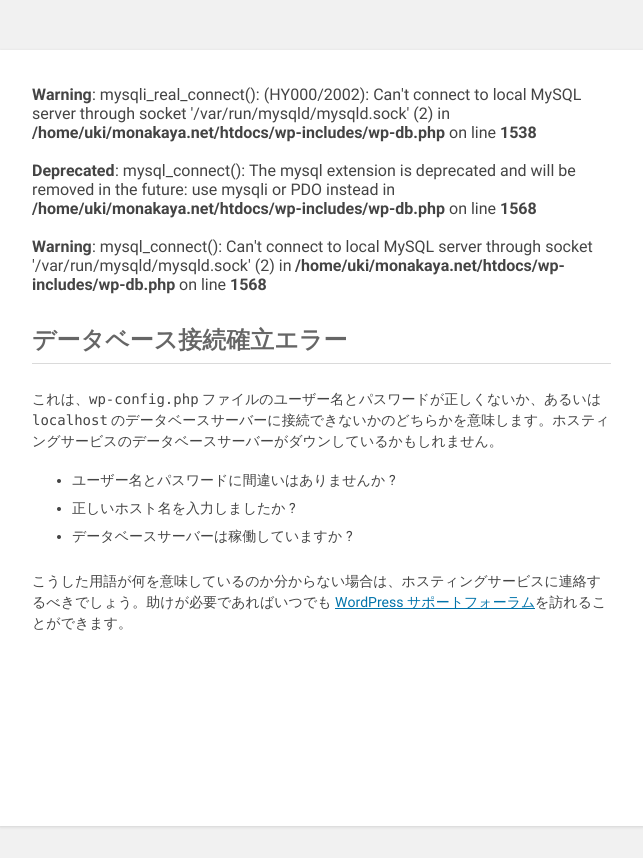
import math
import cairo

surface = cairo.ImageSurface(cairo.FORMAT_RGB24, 643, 858)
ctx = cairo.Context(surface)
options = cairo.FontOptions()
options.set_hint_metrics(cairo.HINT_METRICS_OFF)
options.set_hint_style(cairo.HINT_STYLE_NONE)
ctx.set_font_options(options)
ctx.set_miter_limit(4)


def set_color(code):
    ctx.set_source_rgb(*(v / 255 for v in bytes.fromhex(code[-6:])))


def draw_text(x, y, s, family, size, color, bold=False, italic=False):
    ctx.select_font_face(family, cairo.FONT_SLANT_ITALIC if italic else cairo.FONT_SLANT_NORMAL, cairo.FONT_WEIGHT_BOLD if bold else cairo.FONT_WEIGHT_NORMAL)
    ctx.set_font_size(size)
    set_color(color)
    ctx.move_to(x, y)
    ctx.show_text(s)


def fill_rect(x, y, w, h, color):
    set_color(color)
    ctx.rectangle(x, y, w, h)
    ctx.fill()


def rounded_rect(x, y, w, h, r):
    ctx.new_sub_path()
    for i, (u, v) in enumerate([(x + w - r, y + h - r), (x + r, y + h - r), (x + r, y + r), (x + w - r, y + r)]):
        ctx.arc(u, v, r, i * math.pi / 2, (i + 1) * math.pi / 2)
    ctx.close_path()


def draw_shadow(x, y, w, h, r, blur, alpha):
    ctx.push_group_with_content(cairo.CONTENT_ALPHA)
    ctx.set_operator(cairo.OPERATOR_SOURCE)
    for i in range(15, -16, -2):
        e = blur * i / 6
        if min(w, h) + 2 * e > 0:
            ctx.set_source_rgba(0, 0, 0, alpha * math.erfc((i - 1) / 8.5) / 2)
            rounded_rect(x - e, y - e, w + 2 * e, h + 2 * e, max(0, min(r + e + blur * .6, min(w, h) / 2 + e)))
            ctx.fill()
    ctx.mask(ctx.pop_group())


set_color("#f1f1f1")
ctx.paint()
set_color("#000000")
draw_shadow(0, 51, 643, 776, 0, 1.5, 0.13)
fill_rect(0, 50, 643, 776, "#ffffff")
draw_text(32, 100, "Warning", "Roboto", 16, "#444444", bold=True)
draw_text(92, 100, ": mysqli_real_connect(): (HY000/2002): Can't connect to local MySQL", "Roboto", 16, "#444444")
draw_text(32, 119, "server through socket '/var/run/mysqld/mysqld.sock' (2) in", "Roboto", 16, "#444444")
draw_text(32, 138, "/home/uki/monakaya.net/htdocs/wp-includes/wp-db.php", "Roboto", 16, "#444444", bold=True)
draw_text(449, 138, "on line", "Roboto", 16, "#444444")
draw_text(500, 138, "1538", "Roboto", 16, "#444444", bold=True)
draw_text(32, 176, "Deprecated", "Roboto", 16, "#444444", bold=True)
draw_text(115, 176, ": mysql_connect(): The mysql extension is deprecated and will be", "Roboto", 16, "#444444")
draw_text(32, 195, "removed in the future: use mysqli or PDO instead in", "Roboto", 16, "#444444")
draw_text(32, 214, "/home/uki/monakaya.net/htdocs/wp-includes/wp-db.php", "Roboto", 16, "#444444", bold=True)
draw_text(449, 214, "on line", "Roboto", 16, "#444444")
draw_text(500, 214, "1568", "Roboto", 16, "#444444", bold=True)
draw_text(32, 252, "Warning", "Roboto", 16, "#444444", bold=True)
draw_text(92, 252, ": mysql_connect(): Can't connect to local MySQL server through socket", "Roboto", 16, "#444444")
draw_text(32, 271, "'/var/run/mysqld/mysqld.sock' (2) in", "Roboto", 16, "#444444")
draw_text(295, 271, "/home/uki/monakaya.net/htdocs/wp-", "Roboto", 16, "#444444", bold=True)
draw_text(32, 290, "includes/wp-db.php", "Roboto", 16, "#444444", bold=True)
draw_text(179, 290, "on line", "Roboto", 16, "#444444")
draw_text(230, 290, "1568", "Roboto", 16, "#444444", bold=True)
fill_rect(32, 363, 579, 1, "#dadada")
draw_text(32, 348, "データベース接続確立エラー", "WenQuanYi Zen Hei", 24, "#666666", bold=True)
draw_text(32, 404, "これは、", "WenQuanYi Zen Hei Medium", 14, "#444444")
draw_text(89, 404, "wp-config.php", "DejaVu Sans Mono", 14, "#444444")
draw_text(202, 404, "ファイルのユーザー名とパスワードが正しくないか、あるいは", "WenQuanYi Zen Hei Medium", 14, "#444444")
draw_text(32, 425, "localhost", "DejaVu Sans Mono", 14, "#444444")
draw_text(111, 425, "のデータベースサーバーに接続できないかのどちらかを意味します。ホスティ", "WenQuanYi Zen Hei Medium", 14, "#444444")
draw_text(32, 446, "ングサービスのデータベースサーバーがダウンしているかもしれません。", "WenQuanYi Zen Hei Medium", 14, "#444444")
ctx.new_path()
ctx.arc(59, 481, 2, 0, 2 * math.pi)
ctx.fill()
draw_text(72, 485, "ユーザー名とパスワードに間違いはありませんか", "WenQuanYi Zen Hei Medium", 14, "#444444")
draw_text(389, 485, "?", "Roboto", 14, "#444444")
ctx.new_path()
ctx.arc(59, 509, 2, 0, 2 * math.pi)
ctx.fill()
draw_text(72, 513, "正しいホスト名を入力しましたか", "WenQuanYi Zen Hei Medium", 14, "#444444")
draw_text(289, 513, "?", "Roboto", 14, "#444444")
ctx.new_path()
ctx.arc(59, 537, 2, 0, 2 * math.pi)
ctx.fill()
draw_text(72, 541, "データベースサーバーは稼働していますか", "WenQuanYi Zen Hei Medium", 14, "#444444")
draw_text(346, 541, "?", "Roboto", 14, "#444444")
draw_text(32, 586, "こうした用語が何を意味しているのか分からない場合は、ホスティングサービスに連絡す", "WenQuanYi Zen Hei Medium", 14, "#444444")
draw_text(32, 607, "るべきでしょう。助けが必要であればいつでも", "WenQuanYi Zen Hei Medium", 14, "#444444")
draw_text(335, 607, "WordPress", "Roboto", 14, "#0073aa")
fill_rect(335, 608, 200, 1, "#0073aa")
draw_text(407, 607, "サポートフォーラム", "WenQuanYi Zen Hei Medium", 14, "#0073aa")
draw_text(535, 607, "を訪れるこ", "WenQuanYi Zen Hei Medium", 14, "#444444")
draw_text(32, 628, "とができます。", "WenQuanYi Zen Hei Medium", 14, "#444444")
surface.write_to_png("output.png")
